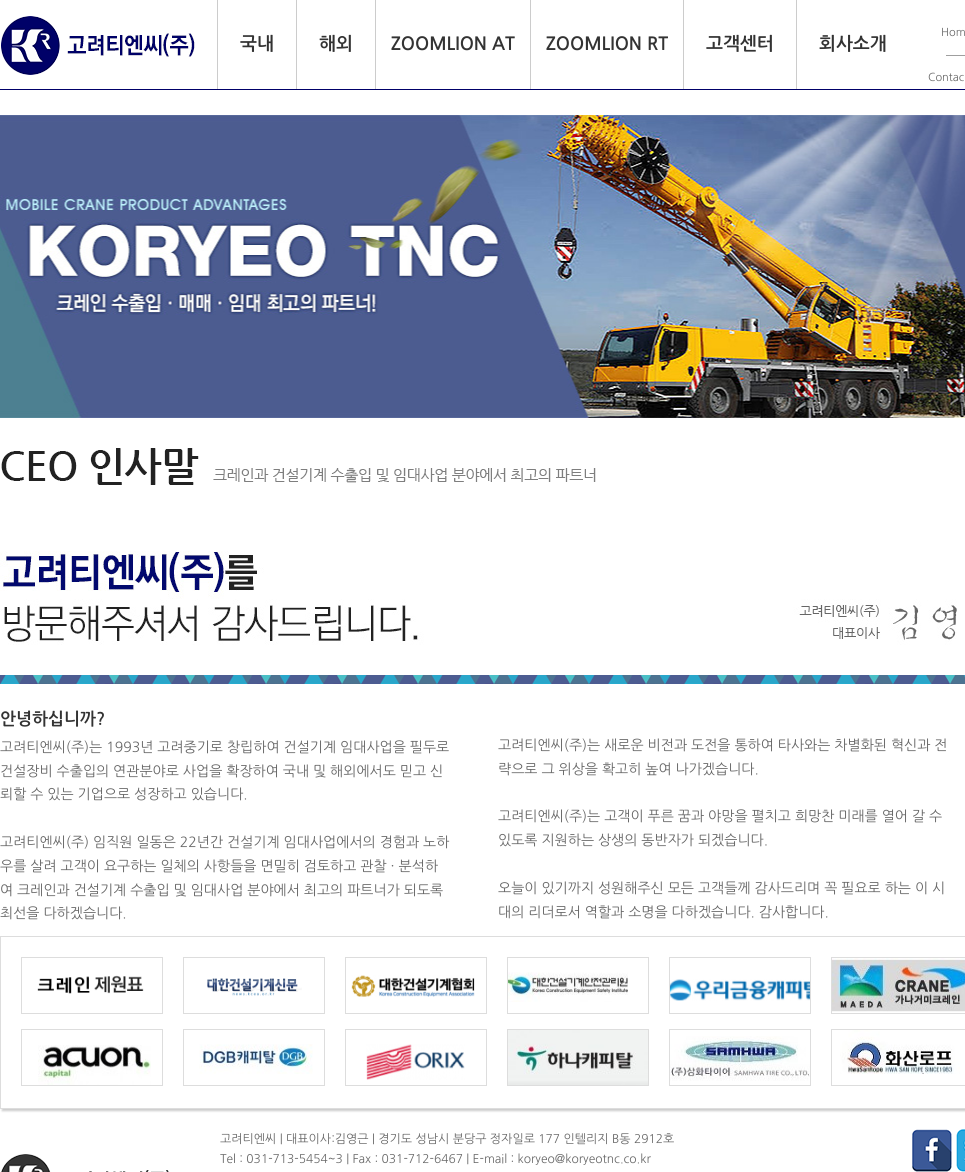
import math
import cairo

surface = cairo.ImageSurface(cairo.FORMAT_RGB24, 965, 1172)
ctx = cairo.Context(surface)
options = cairo.FontOptions()
options.set_hint_metrics(cairo.HINT_METRICS_OFF)
options.set_hint_style(cairo.HINT_STYLE_NONE)
ctx.set_font_options(options)
ctx.set_miter_limit(4)


def set_color(code):
    ctx.set_source_rgb(*(v / 255 for v in bytes.fromhex(code[-6:])))


def draw_text(x, y, s, family, size, color, bold=False, italic=False):
    ctx.select_font_face(family, cairo.FONT_SLANT_ITALIC if italic else cairo.FONT_SLANT_NORMAL, cairo.FONT_WEIGHT_BOLD if bold else cairo.FONT_WEIGHT_NORMAL)
    ctx.set_font_size(size)
    set_color(color)
    ctx.move_to(x, y)
    ctx.show_text(s)


def fill_rect(x, y, w, h, color):
    set_color(color)
    ctx.rectangle(x, y, w, h)
    ctx.fill()


def rounded_rect(x, y, w, h, r):
    ctx.new_sub_path()
    for i, (u, v) in enumerate([(x + w - r, y + h - r), (x + r, y + h - r), (x + r, y + r), (x + w - r, y + r)]):
        ctx.arc(u, v, r, i * math.pi / 2, (i + 1) * math.pi / 2)
    ctx.close_path()


def draw_shadow(x, y, w, h, r, blur, alpha):
    ctx.push_group_with_content(cairo.CONTENT_ALPHA)
    ctx.set_operator(cairo.OPERATOR_SOURCE)
    for i in range(15, -16, -2):
        e = blur * i / 6
        if min(w, h) + 2 * e > 0:
            ctx.set_source_rgba(0, 0, 0, alpha * math.erfc((i - 1) / 8.5) / 2)
            rounded_rect(x - e, y - e, w + 2 * e, h + 2 * e, max(0, min(r + e + blur * .6, min(w, h) / 2 + e)))
            ctx.fill()
    ctx.mask(ctx.pop_group())


def draw_image(path, x, y, w, h):
    ctx.save()
    ctx.set_source_surface(cairo.ImageSurface.create_from_png(path), x, y)
    ctx.rectangle(x, y, w, h)
    ctx.fill()
    ctx.restore()


set_color("#ffffff")
ctx.paint()
fill_rect(0, 89, 965, 1, "#000069")
draw_image("assets/img1.png", 1, 16, 194, 59)
fill_rect(217, 0, 1, 89, "#cccccc")
draw_text(240, 50, "국내", "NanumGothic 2", 18, "#333333", bold=True)
fill_rect(296, 0, 1, 89, "#cccccc")
draw_text(319, 50, "해외", "NanumGothic 2", 18, "#333333", bold=True)
fill_rect(375, 0, 1, 89, "#cccccc")
draw_text(391, 50, "ZOOMLION AT", "NanumGothic 2", 18, "#333333", bold=True)
fill_rect(530, 0, 1, 89, "#cccccc")
draw_text(546, 50, "ZOOMLION RT", "NanumGothic 2", 18, "#333333", bold=True)
fill_rect(683, 0, 1, 89, "#cccccc")
draw_text(706, 50, "고객센터", "NanumGothic 2", 18, "#333333", bold=True)
fill_rect(796, 0, 1, 89, "#cccccc")
draw_text(819, 50, "회사소개", "NanumGothic 2", 18, "#333333", bold=True)
draw_text(941, 36, "Hom", "NanumGothic", 11, "#666666")
fill_rect(946, 55, 19, 1, "#9f9f9f")
draw_text(928, 81, "Contac", "NanumGothic", 11, "#666666")
draw_image("assets/img2.png", 0, 115, 965, 303)
draw_image("assets/img3.png", 1, 448, 595, 37)
draw_image("assets/img4.png", 0, 551, 957, 94)
draw_image("assets/img5.png", 0, 675, 965, 9)
draw_text(0, 724, "안녕하십니까?", "NanumGothic", 17, "#333333", bold=True)
draw_text(0, 752, "고려티엔씨(주)는 1993년 고려중기로 창립하여 건설기계 임대사업을 필두로", "NanumGothic", 14, "#666666")
draw_text(0, 776, "건설장비 수출입의 연관분야로 사업을 확장하여 국내 및 해외에서도 믿고 신", "NanumGothic", 14, "#666666")
draw_text(0, 799, "뢰할 수 있는 기업으로 성장하고 있습니다.", "NanumGothic", 14, "#666666")
draw_text(0, 847, "고려티엔씨(주) 임직원 일동은 22년간 건설기계 임대사업에서의 경험과 노하", "NanumGothic", 14, "#666666")
draw_text(0, 871, "우를 살려 고객이 요구하는 일체의 사항들을 면밀히 검토하고 관찰 · 분석하", "NanumGothic", 14, "#666666")
draw_text(0, 895, "여 크레인과 건설기계 수출입 및 임대사업 분야에서 최고의 파트너가 되도록", "NanumGothic", 14, "#666666")
draw_text(0, 918, "최선을 다하겠습니다.", "NanumGothic", 14, "#666666")
draw_text(498, 750, "고려티엔씨(주)는 새로운 비전과 도전을 통하여 타사와는 차별화된 혁신과 전", "NanumGothic", 14, "#666666")
draw_text(498, 774, "략으로 그 위상을 확고히 높여 나가겠습니다.", "NanumGothic", 14, "#666666")
draw_text(498, 821, "고려티엔씨(주)는 고객이 푸른 꿈과 야망을 펼치고 희망찬 미래를 열어 갈 수", "NanumGothic", 14, "#666666")
draw_text(498, 845, "있도록 지원하는 상생의 동반자가 되겠습니다.", "NanumGothic", 14, "#666666")
draw_text(498, 893, "오늘이 있기까지 성원해주신 모든 고객들께 감사드리며 꼭 필요로 하는 이 시", "NanumGothic", 14, "#666666")
draw_text(498, 917, "대의 리더로서 역할과 소명을 다하겠습니다. 감사합니다.", "NanumGothic", 14, "#666666")
ctx.save()
ctx.rectangle(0, 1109, 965, 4)
ctx.clip()
set_color("#cccccc")
draw_shadow(2, 938, 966, 173, 0, 1, 1)
ctx.restore()
ctx.rectangle(0.5, 936.5, 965, 172)
set_color("#dddddd")
ctx.set_line_width(1)
ctx.stroke()
ctx.rectangle(21.5, 957.5, 141, 56)
ctx.stroke()
draw_image("assets/img6.png", 37, 975, 107, 19)
ctx.rectangle(183.5, 957.5, 141, 56)
ctx.stroke()
draw_image("assets/img7.png", 207, 978, 95, 18)
ctx.rectangle(345.5, 957.5, 141, 56)
ctx.stroke()
draw_image("assets/img8.png", 351, 975, 124, 22)
ctx.rectangle(507.5, 957.5, 141, 56)
ctx.stroke()
draw_image("assets/img9.png", 508, 972, 120, 30)
ctx.rectangle(669.5, 957.5, 141, 56)
ctx.stroke()
draw_image("assets/img10.png", 670, 979, 140, 22)
ctx.rectangle(831.5, 957.5, 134, 56)
ctx.stroke()
draw_image("assets/img11.png", 832, 958, 133, 54)
ctx.rectangle(21.5, 1029.5, 141, 56)
ctx.stroke()
draw_image("assets/img12.png", 38, 1045, 113, 40)
ctx.rectangle(183.5, 1029.5, 141, 56)
ctx.stroke()
draw_image("assets/img13.png", 199, 1044, 114, 30)
ctx.rectangle(345.5, 1029.5, 141, 56)
ctx.stroke()
draw_image("assets/img14.png", 366, 1044, 99, 36)
ctx.rectangle(507.5, 1029.5, 141, 56)
ctx.stroke()
draw_image("assets/img15.png", 508, 1030, 140, 55)
ctx.rectangle(669.5, 1029.5, 141, 56)
ctx.stroke()
draw_image("assets/img16.png", 670, 1036, 140, 45)
ctx.rectangle(831.5, 1029.5, 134, 56)
ctx.stroke()
draw_image("assets/img17.png", 840, 1030, 120, 44)
draw_image("assets/img18.png", 1, 1154, 168, 18)
draw_text(220, 1143, "고려티엔씨 | 대표이사:김영근 | 경기도 성남시 분당구 정자일로 177 인텔리지 B동 2912호", "NanumGothic", 12, "#666666")
draw_text(220, 1163, "Tel : 031-713-5454~3 | Fax : 031-712-6467 | E-mail : koryeo@koryeotnc.co.kr", "NanumGothic", 12, "#666666")
draw_image("assets/img19.png", 912, 1129, 40, 43)
draw_image("assets/img20.png", 956, 1129, 9, 43)
surface.write_to_png("output.png")
